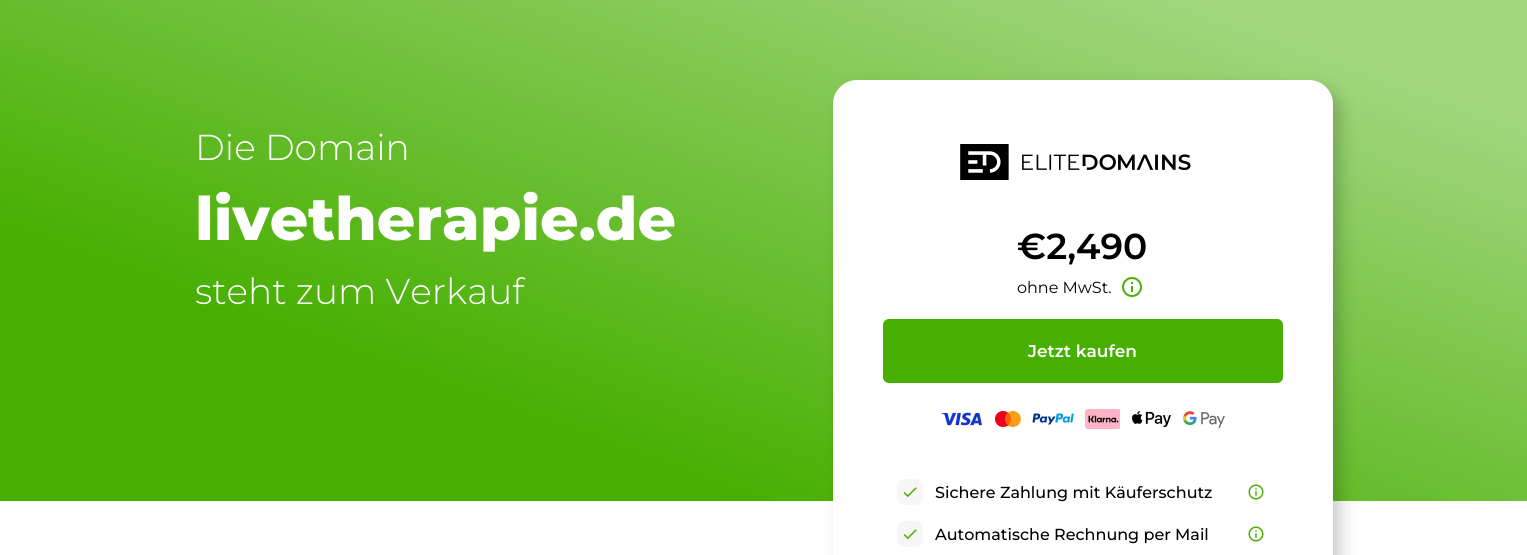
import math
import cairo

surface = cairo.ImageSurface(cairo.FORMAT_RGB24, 1527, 555)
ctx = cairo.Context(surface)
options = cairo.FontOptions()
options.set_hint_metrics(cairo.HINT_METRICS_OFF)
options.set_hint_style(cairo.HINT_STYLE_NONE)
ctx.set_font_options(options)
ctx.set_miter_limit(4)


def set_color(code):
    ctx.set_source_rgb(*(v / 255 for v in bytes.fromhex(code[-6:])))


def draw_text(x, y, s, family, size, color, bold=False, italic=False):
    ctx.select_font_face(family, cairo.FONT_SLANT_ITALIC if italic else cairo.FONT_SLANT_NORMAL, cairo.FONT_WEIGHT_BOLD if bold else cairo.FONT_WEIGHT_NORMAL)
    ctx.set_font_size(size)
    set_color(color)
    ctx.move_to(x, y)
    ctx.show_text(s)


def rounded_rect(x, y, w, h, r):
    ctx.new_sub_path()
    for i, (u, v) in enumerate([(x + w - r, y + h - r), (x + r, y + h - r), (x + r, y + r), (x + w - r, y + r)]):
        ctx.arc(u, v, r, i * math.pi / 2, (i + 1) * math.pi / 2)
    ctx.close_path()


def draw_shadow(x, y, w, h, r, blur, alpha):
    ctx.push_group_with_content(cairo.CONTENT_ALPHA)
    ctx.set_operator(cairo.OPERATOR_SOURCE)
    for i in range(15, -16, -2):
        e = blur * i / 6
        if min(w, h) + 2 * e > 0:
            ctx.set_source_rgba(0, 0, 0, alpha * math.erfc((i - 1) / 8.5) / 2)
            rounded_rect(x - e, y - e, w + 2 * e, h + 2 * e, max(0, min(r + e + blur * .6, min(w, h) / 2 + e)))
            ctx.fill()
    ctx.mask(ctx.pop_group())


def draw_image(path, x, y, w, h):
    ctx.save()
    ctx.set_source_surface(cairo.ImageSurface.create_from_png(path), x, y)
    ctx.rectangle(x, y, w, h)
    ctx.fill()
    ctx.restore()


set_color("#ffffff")
ctx.paint()
gradient = cairo.LinearGradient(594, 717, 933, -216)
gradient.add_color_stop_rgba(0.25, 0.275, 0.686, 0, 1)
gradient.add_color_stop_rgba(0.9, 0.639, 0.843, 0.502, 1)
ctx.set_source(gradient)
ctx.rectangle(0, 0, 1527, 501)
ctx.fill()
draw_text(195, 160, "Die Domain", "Montserrat Light", 36, "#ffffff")
draw_text(195, 240, "livetherapie.de", "Montserrat ExtraBold", 60, "#ffffff")
draw_text(195, 304, "steht zum Verkauf", "Montserrat Light", 36, "#ffffff")
set_color("#000000")
draw_shadow(841, 88, 500, 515, 24, 8, 0.2)
set_color("#ffffff")
rounded_rect(833, 80, 500, 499, 24)
ctx.fill()
draw_image("assets/img1.png", 960, 144, 231, 36)
draw_text(1017, 259, "€2,490", "Montserrat SemiBold", 36, "#000000")
draw_text(1017, 293, "ohne MwSt.", "Montserrat", 16, "#000000")
draw_image("assets/img2.png", 1122, 277, 20, 20)
set_color("#46af00")
rounded_rect(883, 319, 400, 64, 6)
ctx.fill()
draw_text(1028, 357, "Jetzt kaufen", "Montserrat SemiBold", 17, "#ffffff")
draw_image("assets/img3.png", 941, 412, 41, 14)
draw_image("assets/img4.png", 995, 411, 26, 16)
draw_image("assets/img5.png", 1032, 413, 42, 12)
draw_image("assets/img6.png", 1085, 409, 35, 20)
draw_image("assets/img7.png", 1132, 411, 39, 16)
draw_image("assets/img8.png", 1183, 411, 42, 17)
set_color("#f6f6f6")
rounded_rect(897, 479, 26, 26, 8)
ctx.fill()
draw_image("assets/img9.png", 903, 487, 14, 11)
draw_text(935, 498, "Sichere Zahlung mit Käuferschutz", "Montserrat Medium", 16, "#000000")
draw_image("assets/img10.png", 1248, 484, 16, 16)
set_color("#f6f6f6")
rounded_rect(897, 521, 26, 26, 8)
ctx.fill()
draw_image("assets/img9.png", 903, 529, 14, 11)
draw_text(935, 540, "Automatische Rechnung per Mail", "Montserrat Medium", 16, "#000000")
draw_image("assets/img10.png", 1248, 526, 16, 16)
surface.write_to_png("output.png")
